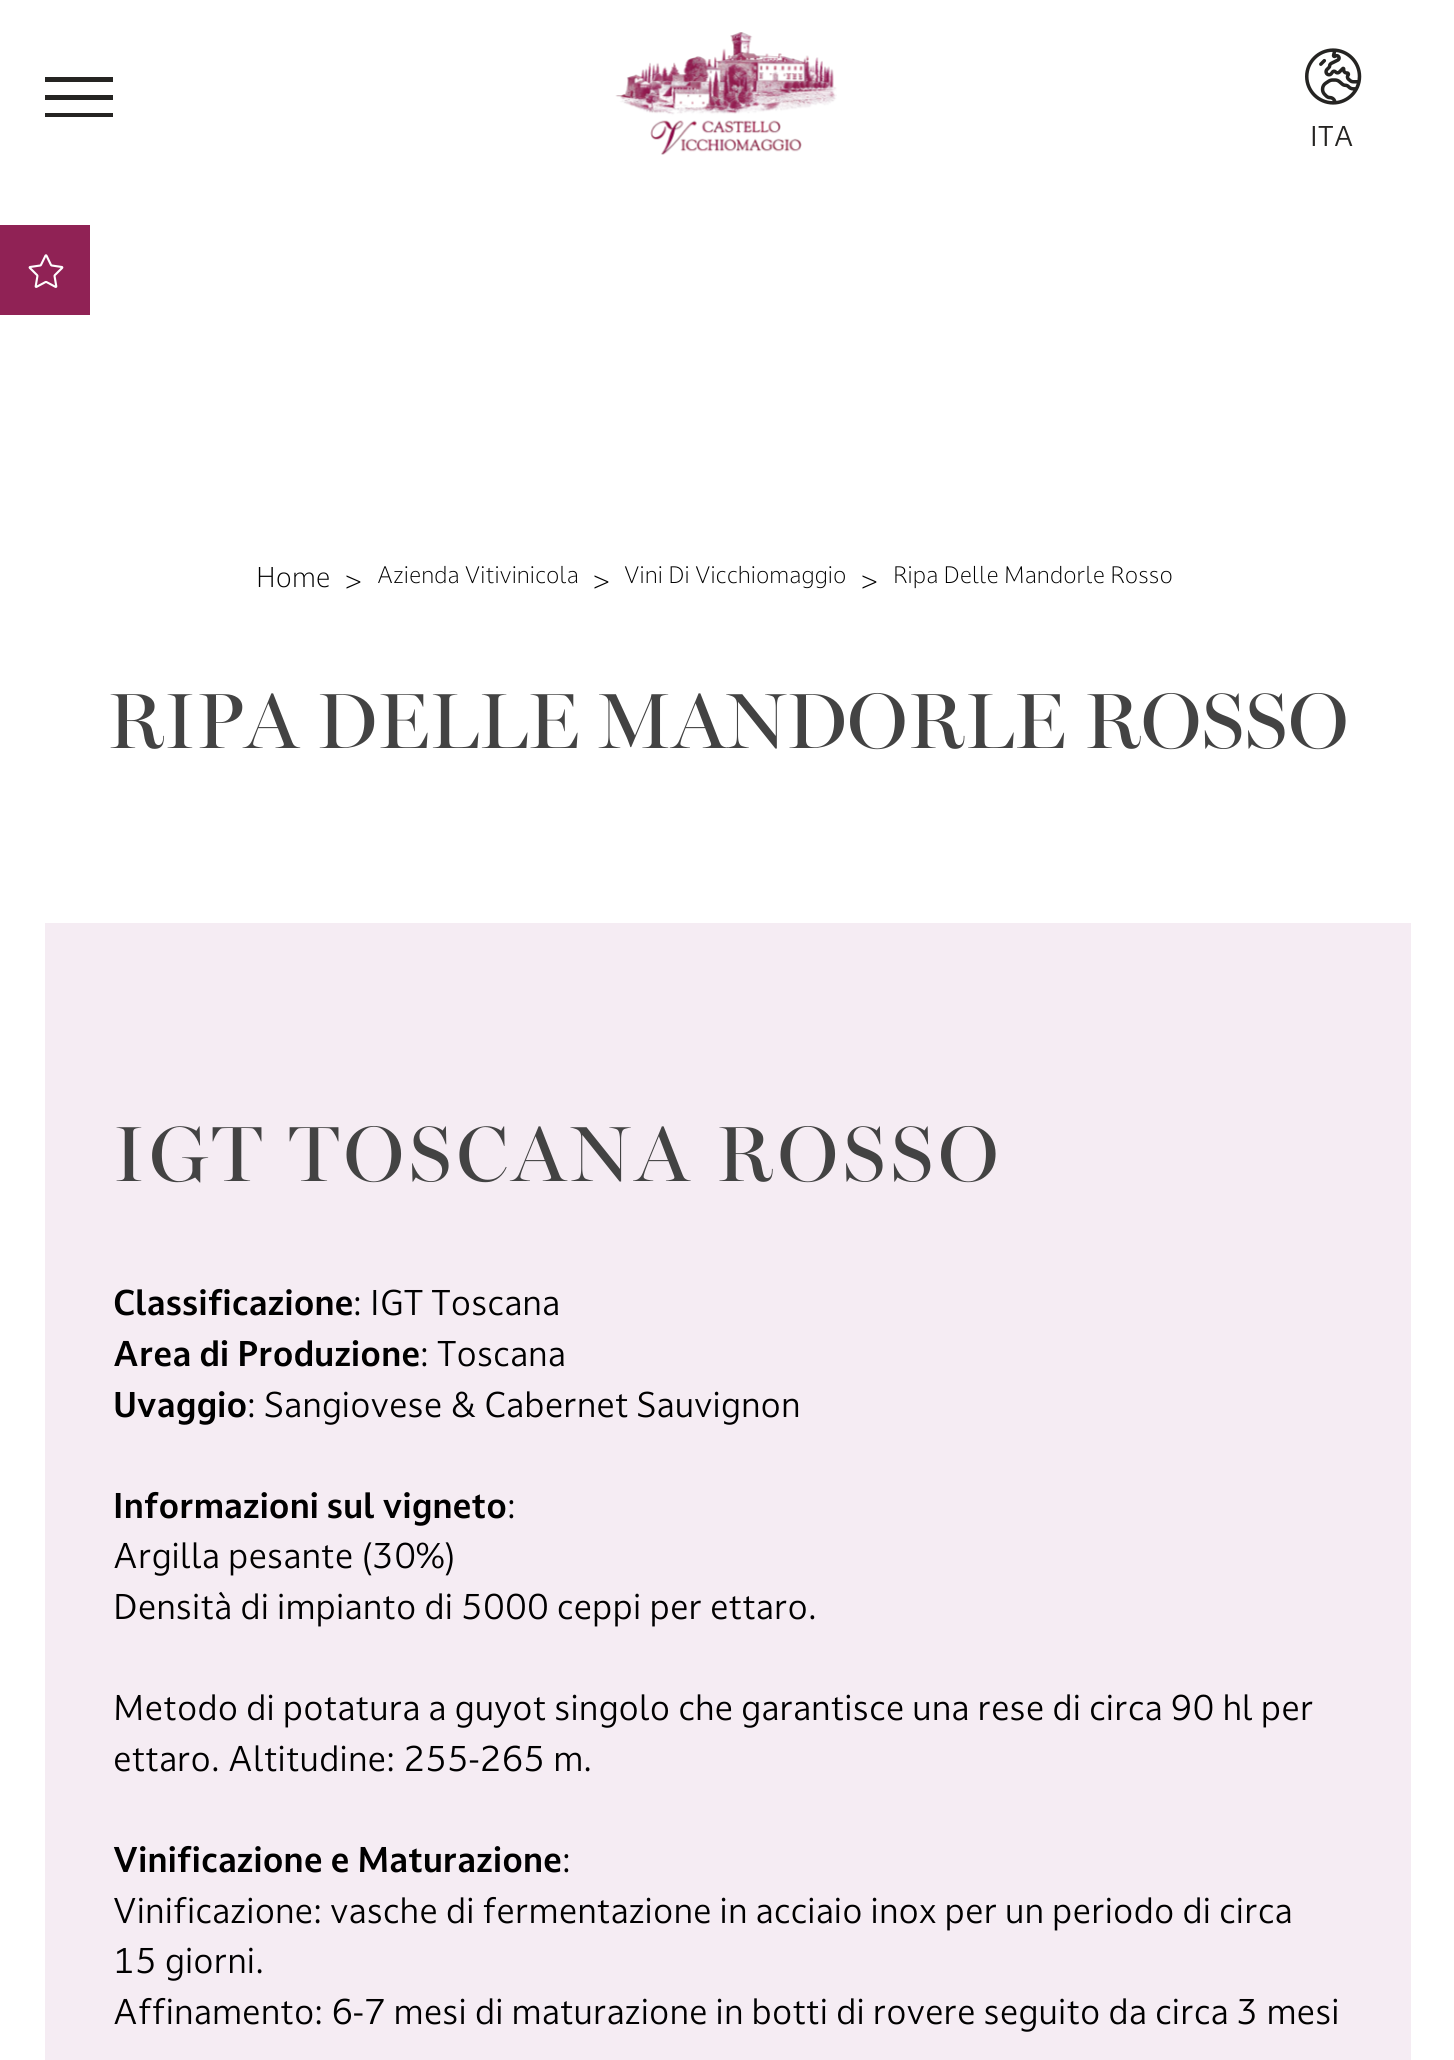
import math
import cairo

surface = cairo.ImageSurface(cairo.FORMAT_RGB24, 1454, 2060)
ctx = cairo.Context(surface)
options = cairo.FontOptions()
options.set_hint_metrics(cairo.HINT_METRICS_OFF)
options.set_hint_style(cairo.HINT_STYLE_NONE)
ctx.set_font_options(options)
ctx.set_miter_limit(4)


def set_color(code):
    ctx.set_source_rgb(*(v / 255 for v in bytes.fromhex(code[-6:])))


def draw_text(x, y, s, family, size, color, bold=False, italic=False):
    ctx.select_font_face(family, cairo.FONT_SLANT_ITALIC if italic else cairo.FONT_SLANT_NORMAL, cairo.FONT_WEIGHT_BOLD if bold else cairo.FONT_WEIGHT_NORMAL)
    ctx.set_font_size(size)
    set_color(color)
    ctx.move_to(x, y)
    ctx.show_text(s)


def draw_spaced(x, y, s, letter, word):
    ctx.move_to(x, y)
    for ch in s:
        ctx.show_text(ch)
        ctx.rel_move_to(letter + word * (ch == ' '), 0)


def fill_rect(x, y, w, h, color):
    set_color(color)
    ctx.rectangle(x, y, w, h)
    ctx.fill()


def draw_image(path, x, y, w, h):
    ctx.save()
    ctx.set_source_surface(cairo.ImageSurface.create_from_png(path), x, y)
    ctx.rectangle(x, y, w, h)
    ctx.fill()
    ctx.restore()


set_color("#ffffff")
ctx.paint()
fill_rect(45, 77, 68, 5, "#252422")
fill_rect(45, 95, 68, 5, "#252422")
fill_rect(45, 113, 68, 4, "#252422")
draw_image("assets/img1.png", 615, 32, 222, 123)
draw_image("assets/img2.png", 1305, 48, 57, 57)
draw_text(1310, 146, "ITA", "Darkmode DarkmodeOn", 27, "#252422")
fill_rect(0, 225, 90, 90, "#902255")
draw_image("assets/img3.png", 28, 254, 36, 34)
draw_text(256, 587, "Home", "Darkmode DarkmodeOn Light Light", 27, "#000000")
draw_text(344, 592, ">", "Darkmode DarkmodeOn Light Light", 29, "#000000")
draw_text(377, 583, "Azienda Vitivinicola", "Darkmode DarkmodeOn Light Light", 22.5, "#000000")
draw_text(592, 592, ">", "Darkmode DarkmodeOn Light Light", 29, "#000000")
draw_text(624, 583, "Vini Di Vicchiomaggio", "Darkmode DarkmodeOn Light Light", 22.5, "#000000")
draw_text(860, 592, ">", "Darkmode DarkmodeOn Light Light", 29, "#000000")
draw_text(893, 583, "Ripa Delle Mandorle Rosso", "Darkmode DarkmodeOn Light Light", 22.5, "#000000")
draw_text(107, 748, "RIPA DELLE MANDORLE ROSSO", "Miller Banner", 78.75, "#434343")
fill_rect(45, 923, 1366, 1137, "#f5ecf3")
set_color("#434343")
draw_spaced(113, 1181, "IGT TOSCANA ROSSO", 4.5, 0)
draw_text(113, 1315, "Classificazione", "Darkmode DarkmodeOn", 33.75, "#000000", bold=True)
draw_text(353, 1315, ": IGT Toscana", "Darkmode DarkmodeOn", 33.75, "#000000")
draw_text(113, 1366, "Area di Produzione", "Darkmode DarkmodeOn", 33.75, "#000000", bold=True)
draw_text(420, 1366, ": Toscana", "Darkmode DarkmodeOn", 33.75, "#000000")
draw_text(113, 1417, "Uvaggio", "Darkmode DarkmodeOn", 33.75, "#000000", bold=True)
draw_text(247, 1417, ": Sangiovese & Cabernet Sauvignon", "Darkmode DarkmodeOn", 33.75, "#000000")
draw_text(113, 1518, "Informazioni sul vigneto", "Darkmode DarkmodeOn", 33.75, "#000000", bold=True)
draw_text(507, 1518, ":", "Darkmode DarkmodeOn", 33.75, "#000000")
draw_text(113, 1568, "Argilla pesante (30%)", "Darkmode DarkmodeOn", 33.75, "#000000")
draw_text(113, 1619, "Densità di impianto di 5000 ceppi per ettaro.", "Darkmode DarkmodeOn", 33.75, "#000000")
draw_text(113, 1720, "Metodo di potatura a guyot singolo che garantisce una rese di circa 90 hl per", "Darkmode DarkmodeOn", 33.75, "#000000")
draw_text(113, 1771, "ettaro. Altitudine: 255-265 m.", "Darkmode DarkmodeOn", 33.75, "#000000")
draw_text(113, 1872, "Vinificazione e Maturazione", "Darkmode DarkmodeOn", 33.75, "#000000", bold=True)
draw_text(562, 1872, ":", "Darkmode DarkmodeOn", 33.75, "#000000")
draw_text(113, 1923, "Vinificazione: vasche di fermentazione in acciaio inox per un periodo di circa", "Darkmode DarkmodeOn", 33.75, "#000000")
draw_text(113, 1973, "15 giorni.", "Darkmode DarkmodeOn", 33.75, "#000000")
draw_text(113, 2024, "Affinamento: 6-7 mesi di maturazione in botti di rovere seguito da circa 3 mesi", "Darkmode DarkmodeOn", 33.75, "#000000")
surface.write_to_png("output.png")
